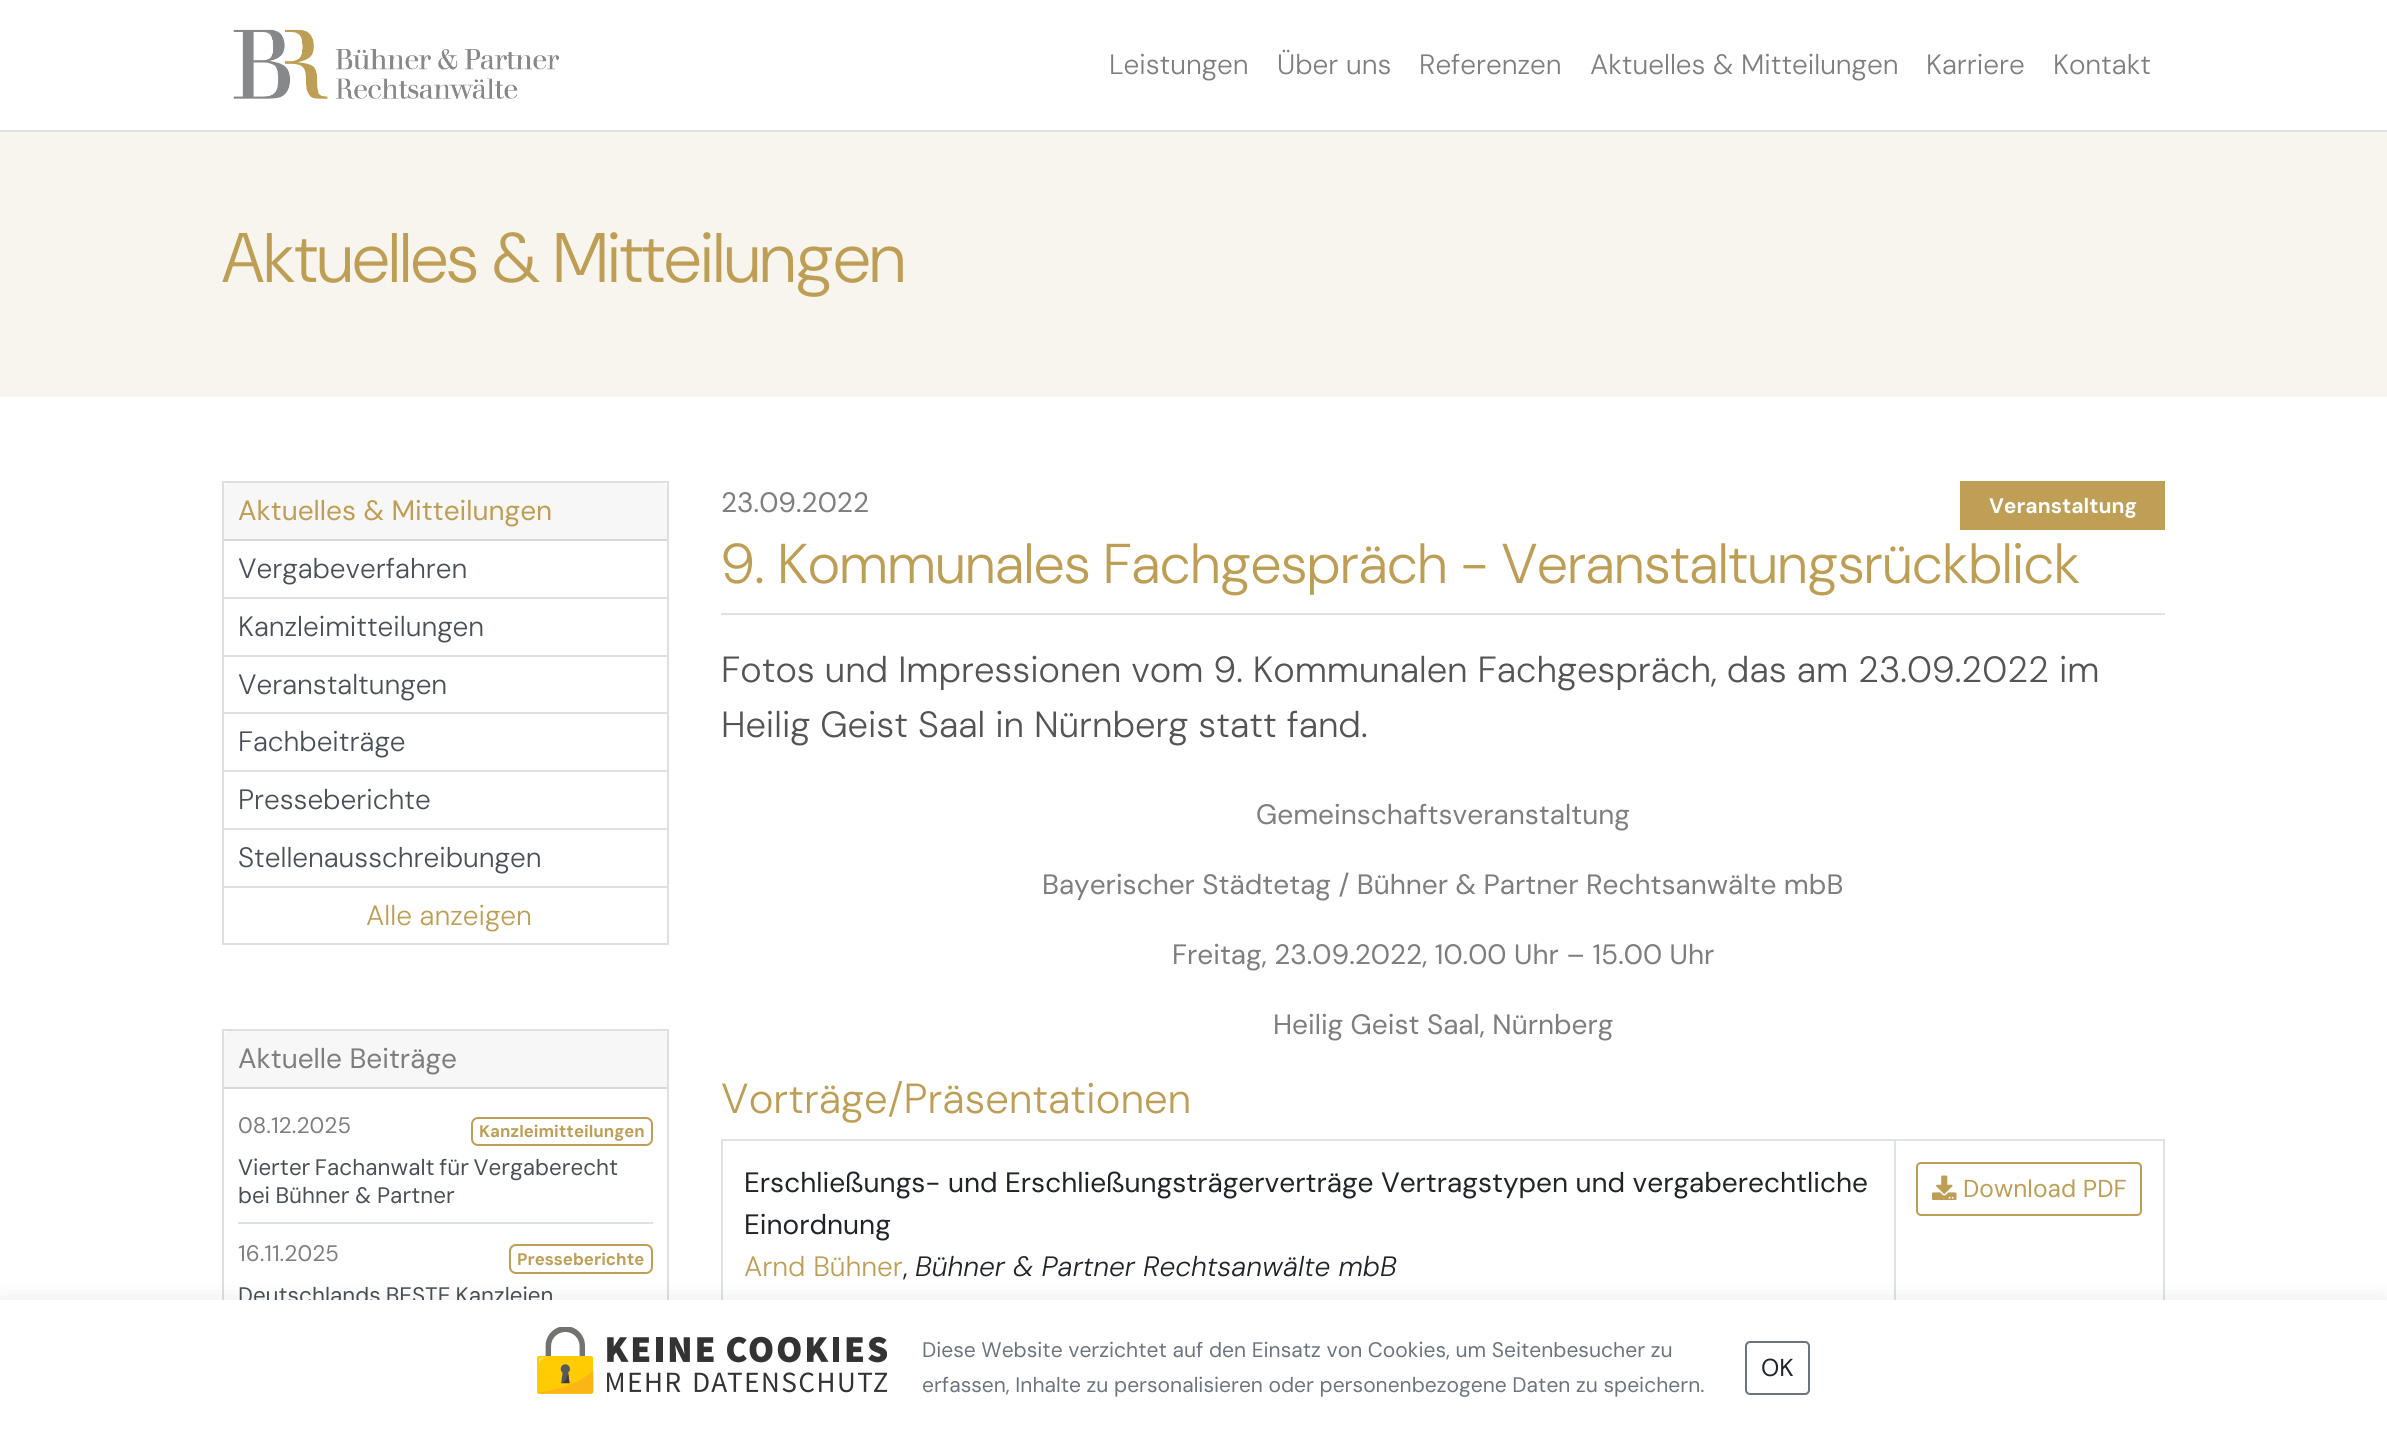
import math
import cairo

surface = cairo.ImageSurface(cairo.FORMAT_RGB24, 2387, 1441)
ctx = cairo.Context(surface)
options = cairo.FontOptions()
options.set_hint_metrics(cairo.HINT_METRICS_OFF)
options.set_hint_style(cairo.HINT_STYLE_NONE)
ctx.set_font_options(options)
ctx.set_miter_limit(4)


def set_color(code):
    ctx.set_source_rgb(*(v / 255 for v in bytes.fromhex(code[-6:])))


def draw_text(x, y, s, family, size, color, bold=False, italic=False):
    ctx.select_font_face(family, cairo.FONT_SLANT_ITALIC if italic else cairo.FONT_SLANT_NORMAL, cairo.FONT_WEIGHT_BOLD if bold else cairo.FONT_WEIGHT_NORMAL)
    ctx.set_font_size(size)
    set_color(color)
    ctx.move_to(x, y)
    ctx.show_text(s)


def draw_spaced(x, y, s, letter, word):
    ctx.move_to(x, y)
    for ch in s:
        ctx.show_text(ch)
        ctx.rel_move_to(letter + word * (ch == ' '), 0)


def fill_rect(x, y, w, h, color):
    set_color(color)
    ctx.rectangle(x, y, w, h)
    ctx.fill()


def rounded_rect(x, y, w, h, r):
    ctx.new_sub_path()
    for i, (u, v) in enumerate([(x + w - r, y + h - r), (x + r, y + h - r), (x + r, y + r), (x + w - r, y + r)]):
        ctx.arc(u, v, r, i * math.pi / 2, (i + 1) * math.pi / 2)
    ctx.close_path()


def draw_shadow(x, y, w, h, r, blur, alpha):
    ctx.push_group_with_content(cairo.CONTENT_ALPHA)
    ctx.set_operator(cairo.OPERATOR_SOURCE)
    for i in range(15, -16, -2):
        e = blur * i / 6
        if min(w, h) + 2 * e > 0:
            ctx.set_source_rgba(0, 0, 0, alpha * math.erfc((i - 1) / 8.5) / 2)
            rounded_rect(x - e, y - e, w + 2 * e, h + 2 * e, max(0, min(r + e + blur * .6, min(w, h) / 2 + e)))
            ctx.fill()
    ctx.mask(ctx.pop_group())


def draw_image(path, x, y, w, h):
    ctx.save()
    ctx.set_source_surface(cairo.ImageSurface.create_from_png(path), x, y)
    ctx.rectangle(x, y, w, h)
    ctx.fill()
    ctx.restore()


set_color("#ffffff")
ctx.paint()
fill_rect(0, 130, 2387, 2, "#dee2e6")
draw_image("assets/img1.png", 233, 29, 327, 70)
draw_text(1109, 74, "Leistungen", "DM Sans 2 Light", 28, "#7e7e7e")
draw_text(1277, 74, "Über uns", "DM Sans 2 Light", 28, "#7e7e7e")
draw_text(1419, 74, "Referenzen", "DM Sans 2 Light", 28, "#7e7e7e")
draw_text(1590, 74, "Aktuelles & Mitteilungen", "DM Sans 2 Light", 28, "#7e7e7e")
draw_text(1926, 74, "Karriere", "DM Sans 2 Light", 28, "#7e7e7e")
draw_text(2053, 74, "Kontakt", "DM Sans 2 Light", 28, "#7e7e7e")
fill_rect(0, 132, 2387, 265, "#f7f5ed")
draw_text(222, 282, "Aktuelles & Mitteilungen", "DM Sans Light", 70, "#be9e55")
ctx.rectangle(223, 482, 445, 462)
set_color("#dfdfdf")
ctx.stroke()
set_color("#f7f7f7")
ctx.new_path()
ctx.move_to(229, 483)
ctx.line_to(662, 483)
ctx.curve_to(665, 483, 667, 485, 667, 488)
ctx.line_to(667, 541)
ctx.line_to(224, 541)
ctx.line_to(224, 488)
ctx.curve_to(224, 485, 226, 483, 229, 483)
ctx.close_path()
ctx.fill()
fill_rect(224, 539, 443, 2, "#d8d8d8")
draw_text(238, 520, "Aktuelles & Mitteilungen", "DM Sans", 28, "#be9e55")
draw_text(238, 578, "Vergabeverfahren", "DM Sans 2 Light", 28, "#495057")
fill_rect(224, 597, 443, 2, "#dfdfdf")
draw_text(238, 636, "Kanzleimitteilungen", "DM Sans 2 Light", 28, "#495057")
fill_rect(224, 655, 443, 2, "#dfdfdf")
draw_text(238, 694, "Veranstaltungen", "DM Sans 2 Light", 28, "#495057")
fill_rect(224, 712, 443, 2, "#dfdfdf")
draw_text(238, 751, "Fachbeiträge", "DM Sans 2 Light", 28, "#495057")
fill_rect(224, 770, 443, 2, "#dfdfdf")
draw_text(238, 809, "Presseberichte", "DM Sans 2 Light", 28, "#495057")
fill_rect(224, 828, 443, 2, "#dfdfdf")
draw_text(238, 867, "Stellenausschreibungen", "DM Sans 2 Light", 28, "#495057")
fill_rect(224, 886, 443, 2, "#dfdfdf")
draw_text(366, 925, "Alle anzeigen", "DM Sans 2 Light", 28, "#be9e55")
ctx.rectangle(223, 1030, 445, 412)
set_color("#dfdfdf")
ctx.stroke()
set_color("#f7f7f7")
ctx.new_path()
ctx.move_to(229, 1031)
ctx.line_to(662, 1031)
ctx.curve_to(665, 1031, 667, 1033, 667, 1036)
ctx.line_to(667, 1089)
ctx.line_to(224, 1089)
ctx.line_to(224, 1036)
ctx.curve_to(224, 1033, 226, 1031, 229, 1031)
ctx.close_path()
ctx.fill()
fill_rect(224, 1087, 443, 2, "#d8d8d8")
draw_text(238, 1068, "Aktuelle Beiträge", "DM Sans", 28, "#7e7e7e")
draw_text(238, 1133, "08.12.2025", "DM Sans 2", 22.4, "#7e7e7e")
rounded_rect(472, 1118, 180, 27, 6)
set_color("#be9f55")
ctx.stroke()
draw_text(479, 1137, "Kanzleimitteilungen", "DM Sans", 16.75, "#be9e55", bold=True)
fill_rect(238, 1222, 415, 2, "#dee2e6")
ctx.select_font_face("DM Sans 2")
ctx.set_font_size(22.4)
set_color("#495057")
draw_spaced(238, 1175, "Vierter Fachanwalt für Vergaberecht", 0, -1.5)
draw_spaced(238, 1203, "bei Bühner & Partner", 0, -0.5)
draw_text(238, 1261, "16.11.2025", "DM Sans 2", 22.4, "#7e7e7e")
rounded_rect(510, 1245, 142, 28, 6)
set_color("#be9f55")
ctx.stroke()
draw_text(517, 1265, "Presseberichte", "DM Sans", 16.75, "#be9e55", bold=True)
ctx.select_font_face("DM Sans 2")
ctx.set_font_size(22.4)
set_color("#495057")
draw_spaced(238, 1303, "Deutschlands BESTE Kanzleien", 0, -1)
draw_text(721, 512, "23.09.2022", "DM Sans", 28, "#7e7e7e")
fill_rect(1960, 481, 205, 49, "#be9f55")
draw_text(1989, 513, "Veranstaltung", "DM Sans 2", 21, "#ffffff", bold=True)
fill_rect(721, 613, 1444, 2, "#dee2e6")
draw_text(721, 583, "9. Kommunales Fachgespräch - Veranstaltungsrückblick", "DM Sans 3 Light", 56, "#be9e55")
draw_text(721, 682, "Fotos und Impressionen vom 9. Kommunalen Fachgespräch, das am 23.09.2022 im", "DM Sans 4 Light", 36.4, "#545454")
draw_text(721, 737, "Heilig Geist Saal in Nürnberg statt fand.", "DM Sans 4 Light", 36.4, "#545454")
draw_text(1256, 824, "Gemeinschaftsveranstaltung", "DM Sans", 28, "#7e7e7e")
draw_text(1042, 894, "Bayerischer Städtetag / Bühner & Partner Rechtsanwälte mbB", "DM Sans", 28, "#7e7e7e")
draw_text(1172, 964, "Freitag, 23.09.2022, 10.00 Uhr – 15.00 Uhr", "DM Sans", 28, "#7e7e7e")
draw_text(1273, 1034, "Heilig Geist Saal, Nürnberg", "DM Sans", 28, "#7e7e7e")
draw_text(721, 1113, "Vorträge/Präsentationen", "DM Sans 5 Light", 42, "#be9e55")
fill_rect(721, 1139, 1444, 2, "#dee2e6")
fill_rect(2163, 1139, 2, 161, "#dee2e6")
fill_rect(721, 1139, 2, 161, "#dee2e6")
draw_text(744, 1192, "Erschließungs- und Erschließungsträgerverträge Vertragstypen und vergaberechtliche", "DM Sans", 28, "#212529")
draw_text(744, 1234, "Einordnung", "DM Sans", 28, "#212529")
draw_text(744, 1276, "Arnd Bühner", "DM Sans 2 Light", 28, "#be9e55")
draw_text(903, 1276, ",", "DM Sans 2 Light", 28, "#212529")
draw_text(915, 1276, "Bühner & Partner Rechtsanwälte mbB", "DM Sans Light", 28, "#212529", italic=True)
fill_rect(1894, 1139, 2, 161, "#dee2e6")
rounded_rect(1917, 1163, 224, 52, 4)
set_color("#be9e55")
ctx.stroke()
draw_image("assets/img2.png", 1932, 1175, 25, 26)
draw_text(1963, 1197, "Download PDF", "DM Sans 2", 24.5, "#be9e55")
set_color("#101f3b")
draw_shadow(0, 1307, 2387, 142, 0, 14, 0.16)
fill_rect(0, 1300, 2387, 141, "#ffffff")
draw_image("assets/img3.png", 537, 1327, 350, 67)
draw_text(922, 1357, "Diese Website verzichtet auf den Einsatz von Cookies, um Seitenbesucher zu", "DM Sans 3", 21, "#6c757d")
draw_text(922, 1392, "erfassen, Inhalte zu personalisieren oder personenbezogene Daten zu speichern.", "DM Sans 3", 21, "#6c757d")
rounded_rect(1746, 1342, 63, 52, 4)
ctx.stroke()
draw_text(1761, 1376, "OK", "DM Sans 2", 24.5, "#212529")
surface.write_to_png("output.png")
